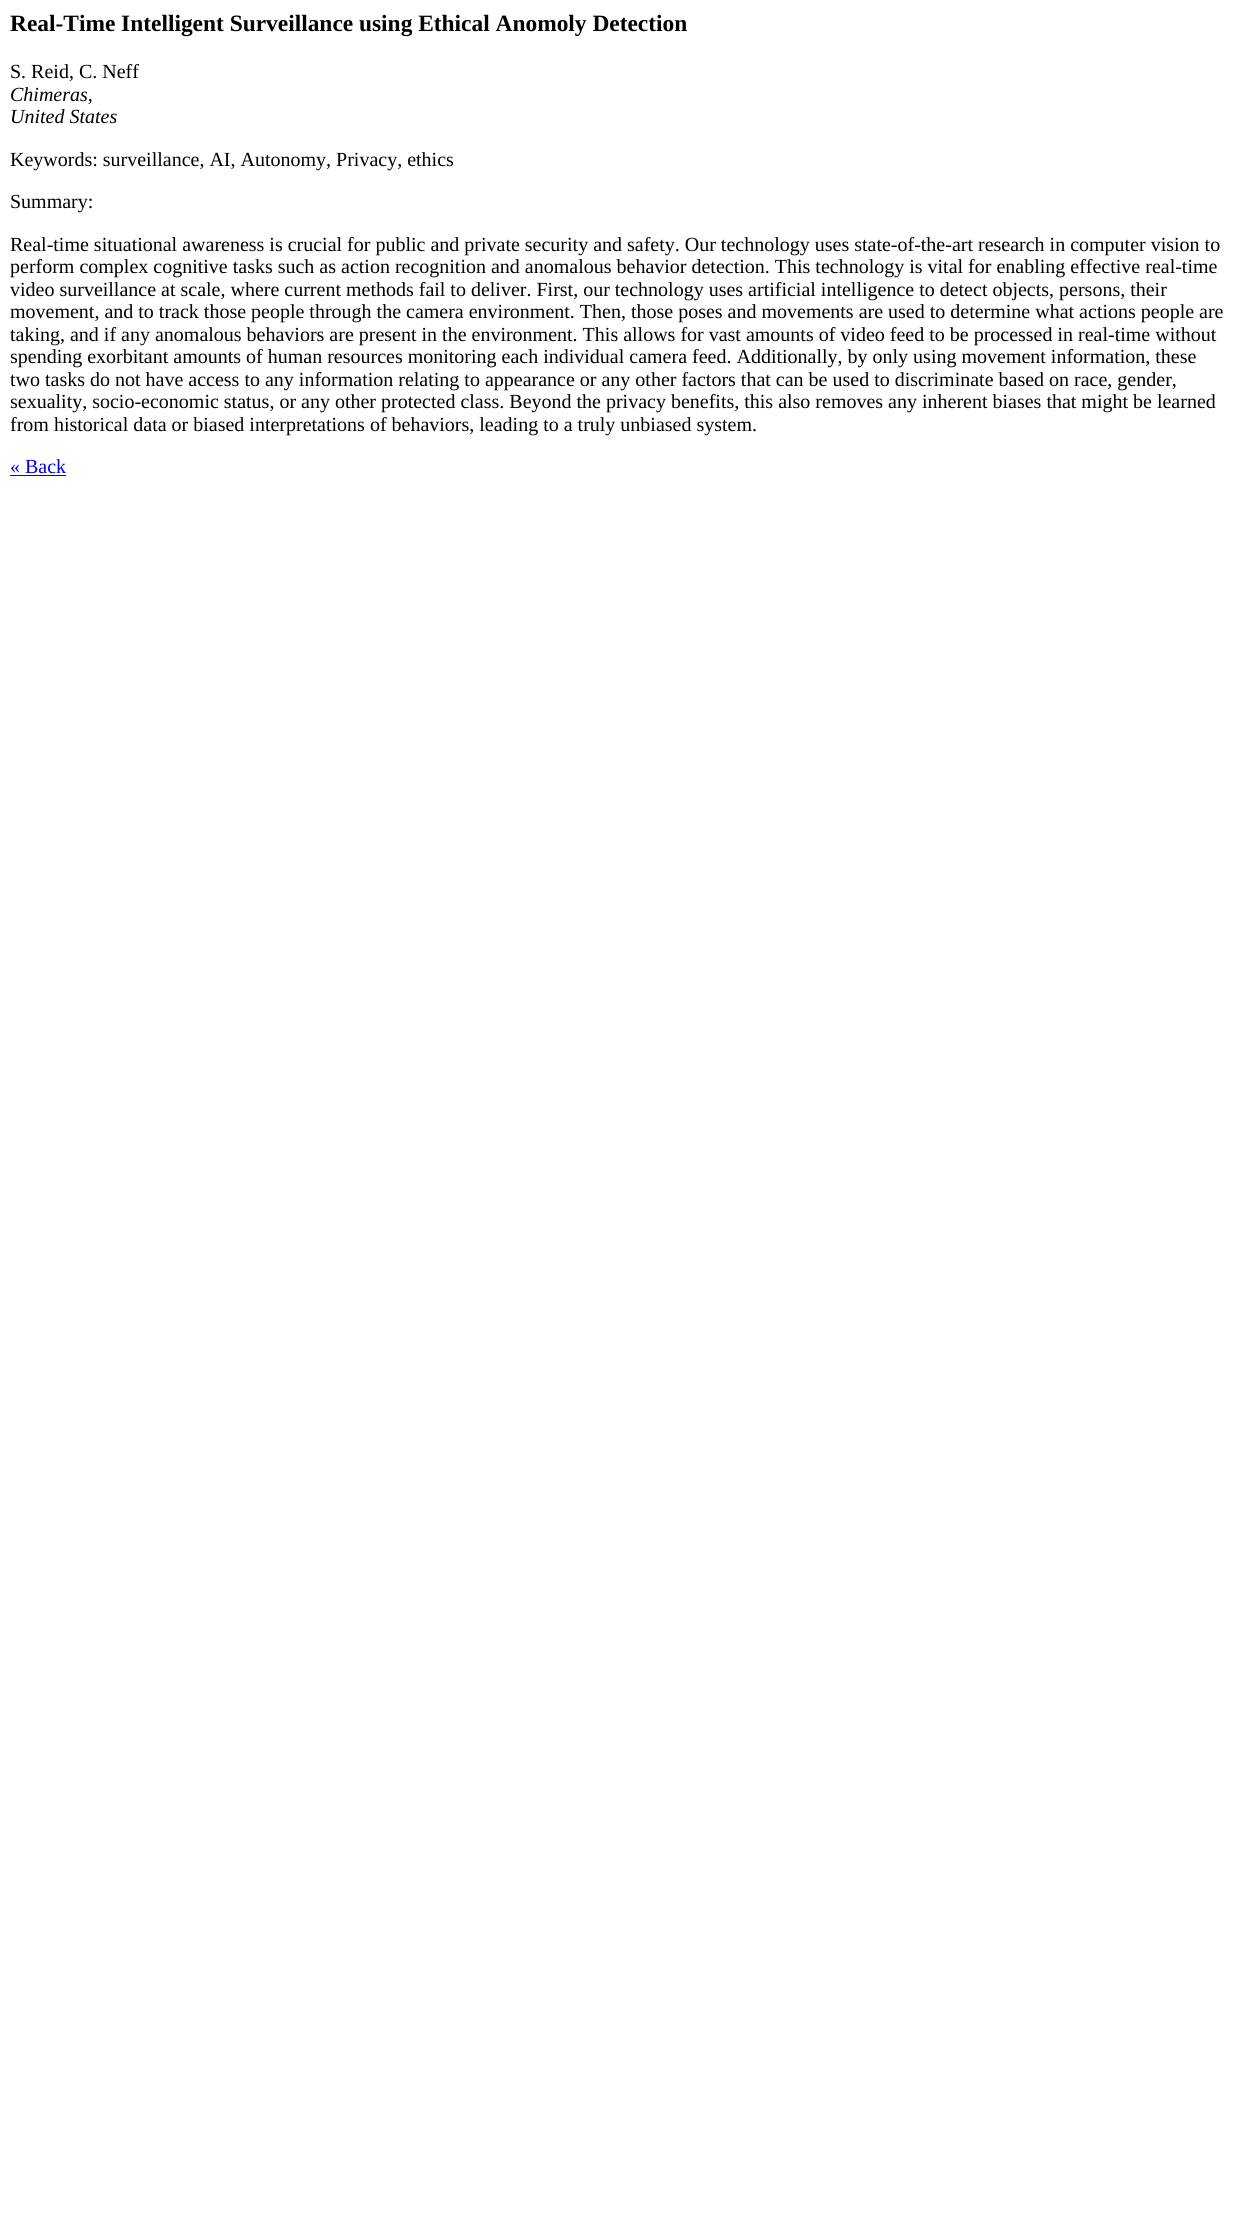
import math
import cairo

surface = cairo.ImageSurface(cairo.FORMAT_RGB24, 1233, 2239)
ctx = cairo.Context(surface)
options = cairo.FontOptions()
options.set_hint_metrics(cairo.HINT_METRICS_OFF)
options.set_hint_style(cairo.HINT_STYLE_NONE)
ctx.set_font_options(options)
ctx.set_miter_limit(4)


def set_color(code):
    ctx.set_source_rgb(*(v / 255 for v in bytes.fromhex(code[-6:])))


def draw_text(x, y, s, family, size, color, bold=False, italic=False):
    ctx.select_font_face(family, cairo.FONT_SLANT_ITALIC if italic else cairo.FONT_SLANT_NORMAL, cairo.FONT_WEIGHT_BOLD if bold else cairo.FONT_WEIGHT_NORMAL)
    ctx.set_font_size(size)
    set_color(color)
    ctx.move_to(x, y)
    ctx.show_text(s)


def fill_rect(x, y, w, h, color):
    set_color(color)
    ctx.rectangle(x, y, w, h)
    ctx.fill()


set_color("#ffffff")
ctx.paint()
draw_text(10, 31, "Real-Time Intelligent Surveillance using Ethical Anomoly Detection", "Liberation Serif", 23.4, "#000000", bold=True)
draw_text(10, 78, "S. Reid, C. Neff", "Liberation Serif", 20, "#000000")
draw_text(10, 101, "Chimeras,", "Liberation Serif", 20, "#000000", italic=True)
draw_text(10, 123, "United States", "Liberation Serif", 20, "#000000", italic=True)
draw_text(10, 166, "Keywords: surveillance, AI, Autonomy, Privacy, ethics", "Liberation Serif", 20, "#000000")
draw_text(10, 208, "Summary:", "Liberation Serif", 20, "#000000")
draw_text(10, 251, "Real-time situational awareness is crucial for public and private security and safety. Our technology uses state-of-the-art research in computer vision to", "Liberation Serif", 20, "#000000")
draw_text(10, 273, "perform complex cognitive tasks such as action recognition and anomalous behavior detection. This technology is vital for enabling effective real-time", "Liberation Serif", 20, "#000000")
draw_text(10, 296, "video surveillance at scale, where current methods fail to deliver. First, our technology uses artificial intelligence to detect objects, persons, their", "Liberation Serif", 20, "#000000")
draw_text(10, 318, "movement, and to track those people through the camera environment. Then, those poses and movements are used to determine what actions people are", "Liberation Serif", 20, "#000000")
draw_text(10, 341, "taking, and if any anomalous behaviors are present in the environment. This allows for vast amounts of video feed to be processed in real-time without", "Liberation Serif", 20, "#000000")
draw_text(10, 363, "spending exorbitant amounts of human resources monitoring each individual camera feed. Additionally, by only using movement information, these", "Liberation Serif", 20, "#000000")
draw_text(10, 386, "two tasks do not have access to any information relating to appearance or any other factors that can be used to discriminate based on race, gender,", "Liberation Serif", 20, "#000000")
draw_text(10, 408, "sexuality, socio-economic status, or any other protected class. Beyond the privacy benefits, this also removes any inherent biases that might be learned", "Liberation Serif", 20, "#000000")
draw_text(10, 431, "from historical data or biased interpretations of behaviors, leading to a truly unbiased system.", "Liberation Serif", 20, "#000000")
draw_text(10, 473, "« Back", "Liberation Serif", 20, "#0000ee")
fill_rect(10, 475, 56, 1, "#0000ee")
surface.write_to_png("output.png")
